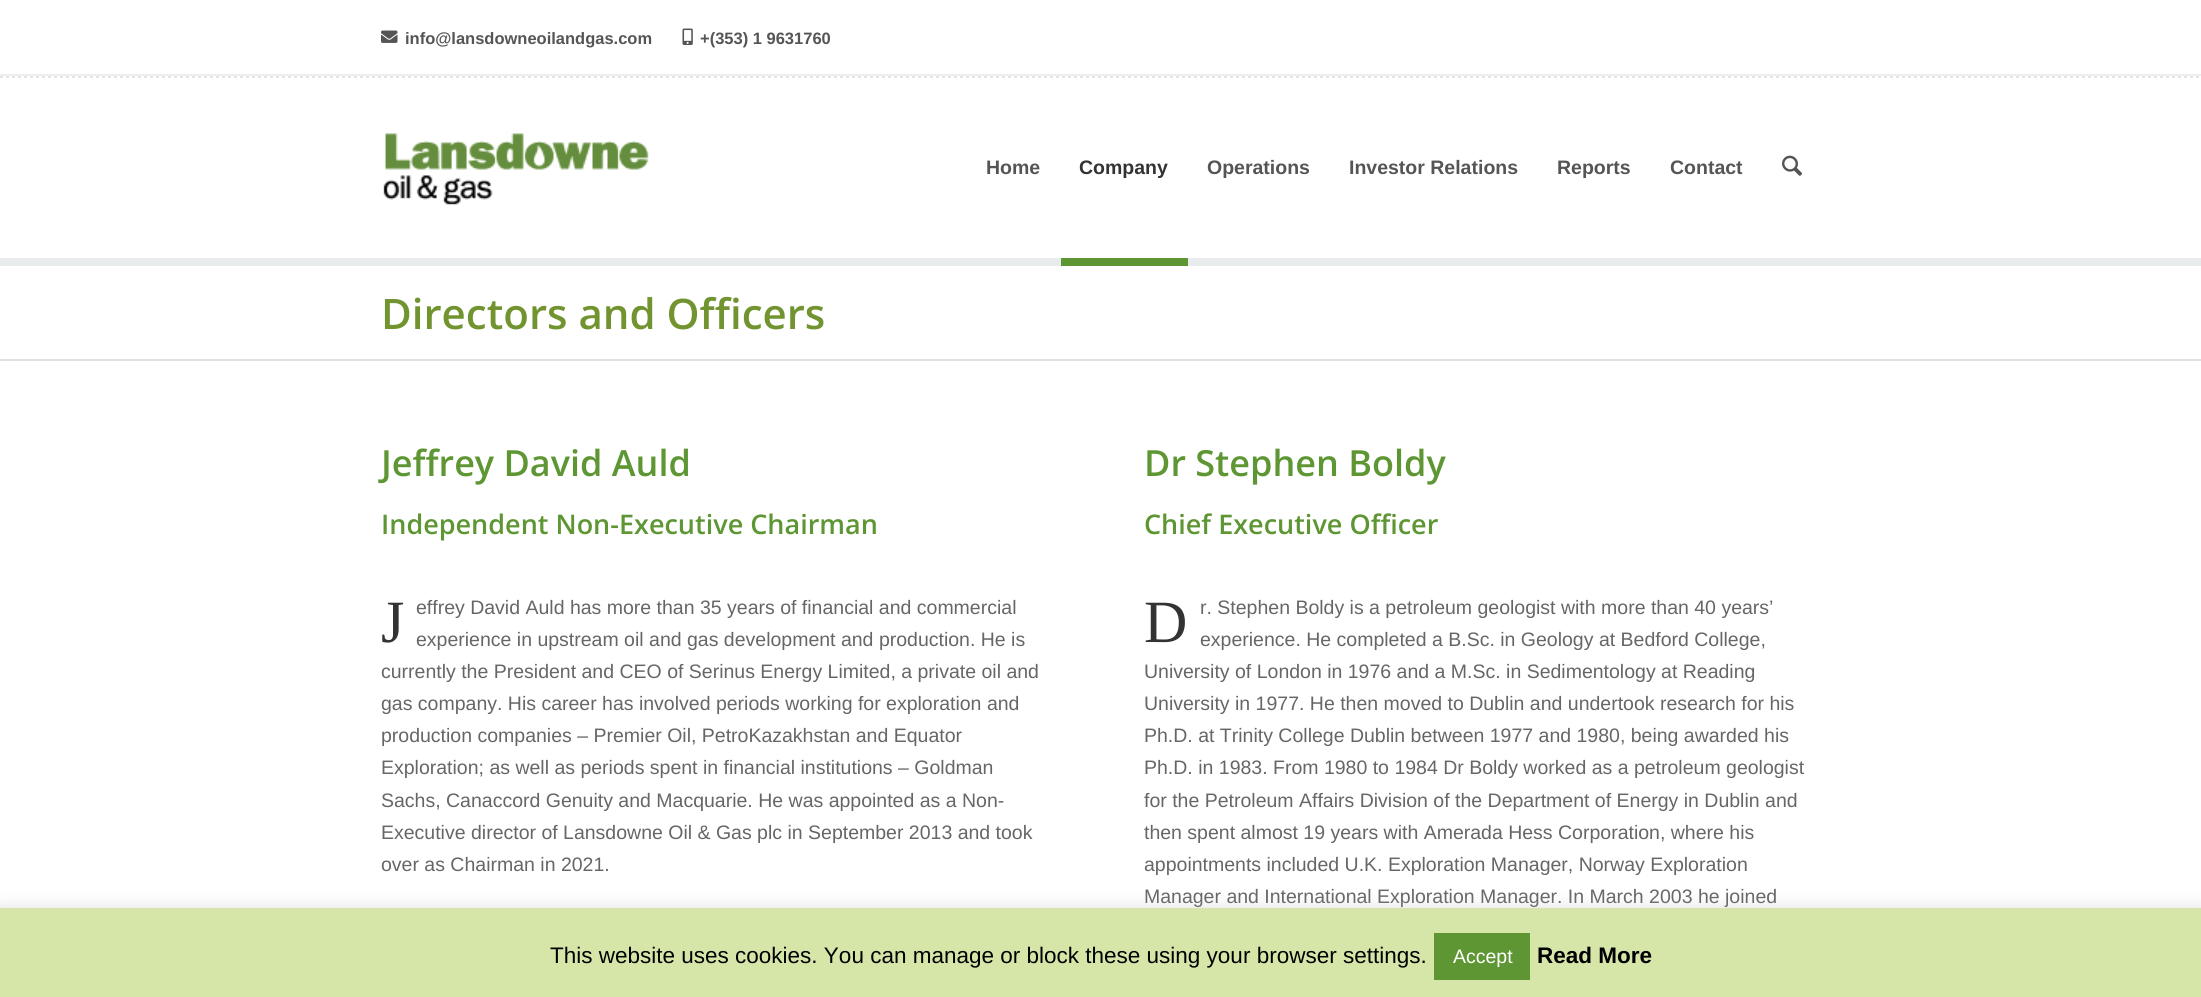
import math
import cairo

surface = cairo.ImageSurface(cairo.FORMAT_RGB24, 2201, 997)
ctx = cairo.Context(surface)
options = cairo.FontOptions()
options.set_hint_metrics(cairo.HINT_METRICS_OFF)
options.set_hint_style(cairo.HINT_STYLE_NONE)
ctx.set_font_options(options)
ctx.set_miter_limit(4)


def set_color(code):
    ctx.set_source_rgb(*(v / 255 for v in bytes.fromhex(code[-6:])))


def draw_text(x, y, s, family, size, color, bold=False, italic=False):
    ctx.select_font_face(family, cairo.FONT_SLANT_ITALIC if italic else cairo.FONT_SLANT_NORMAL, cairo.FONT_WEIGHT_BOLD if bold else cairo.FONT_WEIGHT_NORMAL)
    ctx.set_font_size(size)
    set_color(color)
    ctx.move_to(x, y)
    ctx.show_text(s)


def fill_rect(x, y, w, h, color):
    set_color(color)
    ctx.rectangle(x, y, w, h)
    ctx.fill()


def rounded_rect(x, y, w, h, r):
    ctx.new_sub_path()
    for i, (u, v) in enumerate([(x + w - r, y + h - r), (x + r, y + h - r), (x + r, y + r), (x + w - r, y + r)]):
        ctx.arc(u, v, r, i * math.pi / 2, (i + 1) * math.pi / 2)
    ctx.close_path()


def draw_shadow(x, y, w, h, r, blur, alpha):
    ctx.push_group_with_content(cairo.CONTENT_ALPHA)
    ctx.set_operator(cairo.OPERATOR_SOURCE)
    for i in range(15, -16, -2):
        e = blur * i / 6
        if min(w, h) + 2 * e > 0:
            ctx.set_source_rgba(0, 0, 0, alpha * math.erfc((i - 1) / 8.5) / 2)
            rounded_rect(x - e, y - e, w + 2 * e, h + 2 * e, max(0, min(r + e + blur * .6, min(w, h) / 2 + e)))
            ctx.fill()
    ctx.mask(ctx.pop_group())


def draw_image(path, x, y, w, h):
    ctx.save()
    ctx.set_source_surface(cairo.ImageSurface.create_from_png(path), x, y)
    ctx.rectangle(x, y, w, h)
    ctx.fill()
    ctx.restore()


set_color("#ffffff")
ctx.paint()
ctx.new_path()
ctx.move_to(0, 76.5)
ctx.line_to(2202, 76.5)
set_color("#e5e5e5")
ctx.set_line_width(3)
ctx.set_dash([3, 3])
ctx.stroke()
fill_rect(0, 74, 2201, 2, "#eeeeee")
draw_image("assets/img1.png", 381, 30, 17, 13)
draw_text(405, 44, "info@lansdowneoilandgas.com", "Liberation Sans", 16.5, "#555555", bold=True)
draw_image("assets/img2.png", 682, 28, 11, 17)
draw_text(700, 44, "+(353) 1 9631760", "Liberation Sans", 16.5, "#555555", bold=True)
fill_rect(0, 258, 2201, 8, "#e9ecec")
draw_image("assets/img3.png", 383, 133, 266, 72)
draw_text(986, 174, "Home", "Liberation Sans", 19.5, "#555555", bold=True)
draw_text(1079, 174, "Company", "Liberation Sans", 19.5, "#333333", bold=True)
fill_rect(1061, 258, 127, 8, "#5d9632")
draw_text(1207, 174, "Operations", "Liberation Sans", 19.5, "#555555", bold=True)
draw_text(1349, 174, "Investor Relations", "Liberation Sans", 19.5, "#555555", bold=True)
draw_text(1557, 174, "Reports", "Liberation Sans", 19.5, "#555555", bold=True)
draw_text(1670, 174, "Contact", "Liberation Sans", 19.5, "#555555", bold=True)
draw_image("assets/img4.png", 1782, 155, 20, 21)
draw_text(381, 329, "Directors and Officers", "Open Sans SemiBold", 42, "#719430")
fill_rect(0, 359, 2201, 2, "#e1e1e1")
draw_text(381, 476, "Jeffrey David Auld", "Open Sans SemiBold", 36, "#5d9632")
draw_text(381, 534, "Independent Non-Executive Chairman", "Open Sans SemiBold", 27, "#5d9632")
draw_text(381, 642, "J", "Liberation Serif", 60, "#333333")
draw_text(416, 614, "effrey David Auld has more than 35 years of financial and commercial", "Liberation Sans", 19.5, "#666666")
draw_text(416, 646, "experience in upstream oil and gas development and production. He is", "Liberation Sans", 19.5, "#666666")
draw_text(381, 678, "currently the President and CEO of Serinus Energy Limited, a private oil and", "Liberation Sans", 19.5, "#666666")
draw_text(381, 710, "gas company. His career has involved periods working for exploration and", "Liberation Sans", 19.5, "#666666")
draw_text(381, 742, "production companies – Premier Oil, PetroKazakhstan and Equator", "Liberation Sans", 19.5, "#666666")
draw_text(381, 774, "Exploration; as well as periods spent in financial institutions – Goldman", "Liberation Sans", 19.5, "#666666")
draw_text(381, 807, "Sachs, Canaccord Genuity and Macquarie. He was appointed as a Non-", "Liberation Sans", 19.5, "#666666")
draw_text(381, 839, "Executive director of Lansdowne Oil & Gas plc in September 2013 and took", "Liberation Sans", 19.5, "#666666")
draw_text(381, 871, "over as Chairman in 2021.", "Liberation Sans", 19.5, "#666666")
draw_text(1144, 476, "Dr Stephen Boldy", "Open Sans SemiBold", 36, "#5d9632")
draw_text(1144, 534, "Chief Executive Officer", "Open Sans SemiBold", 27, "#5d9632")
draw_text(1144, 642, "D", "Liberation Serif", 60, "#333333")
draw_text(1200, 614, "r. Stephen Boldy is a petroleum geologist with more than 40 years’", "Liberation Sans", 19.5, "#666666")
draw_text(1200, 646, "experience. He completed a B.Sc. in Geology at Bedford College,", "Liberation Sans", 19.5, "#666666")
draw_text(1144, 678, "University of London in 1976 and a M.Sc. in Sedimentology at Reading", "Liberation Sans", 19.5, "#666666")
draw_text(1144, 710, "University in 1977. He then moved to Dublin and undertook research for his", "Liberation Sans", 19.5, "#666666")
draw_text(1144, 742, "Ph.D. at Trinity College Dublin between 1977 and 1980, being awarded his", "Liberation Sans", 19.5, "#666666")
draw_text(1144, 774, "Ph.D. in 1983. From 1980 to 1984 Dr Boldy worked as a petroleum geologist", "Liberation Sans", 19.5, "#666666")
draw_text(1144, 807, "for the Petroleum Affairs Division of the Department of Energy in Dublin and", "Liberation Sans", 19.5, "#666666")
draw_text(1144, 839, "then spent almost 19 years with Amerada Hess Corporation, where his", "Liberation Sans", 19.5, "#666666")
draw_text(1144, 871, "appointments included U.K. Exploration Manager, Norway Exploration", "Liberation Sans", 19.5, "#666666")
draw_text(1144, 903, "Manager and International Exploration Manager. In March 2003 he joined", "Liberation Sans", 19.5, "#666666")
set_color("#acabab")
draw_shadow(0, 906, 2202, 90, 0, 7.5, 0.3)
fill_rect(0, 908, 2201, 89, "#d6e6a9")
draw_text(550, 963, "This website uses cookies. You can manage or block these using your browser settings.", "Liberation Sans", 22.5, "#000000")
fill_rect(1434, 933, 96, 47, "#5d9632")
draw_text(1453, 963, "Accept", "Liberation Sans", 19.5, "#ffffff")
draw_text(1537, 963, "Read More", "Liberation Sans", 22.5, "#000000", bold=True)
surface.write_to_png("output.png")
